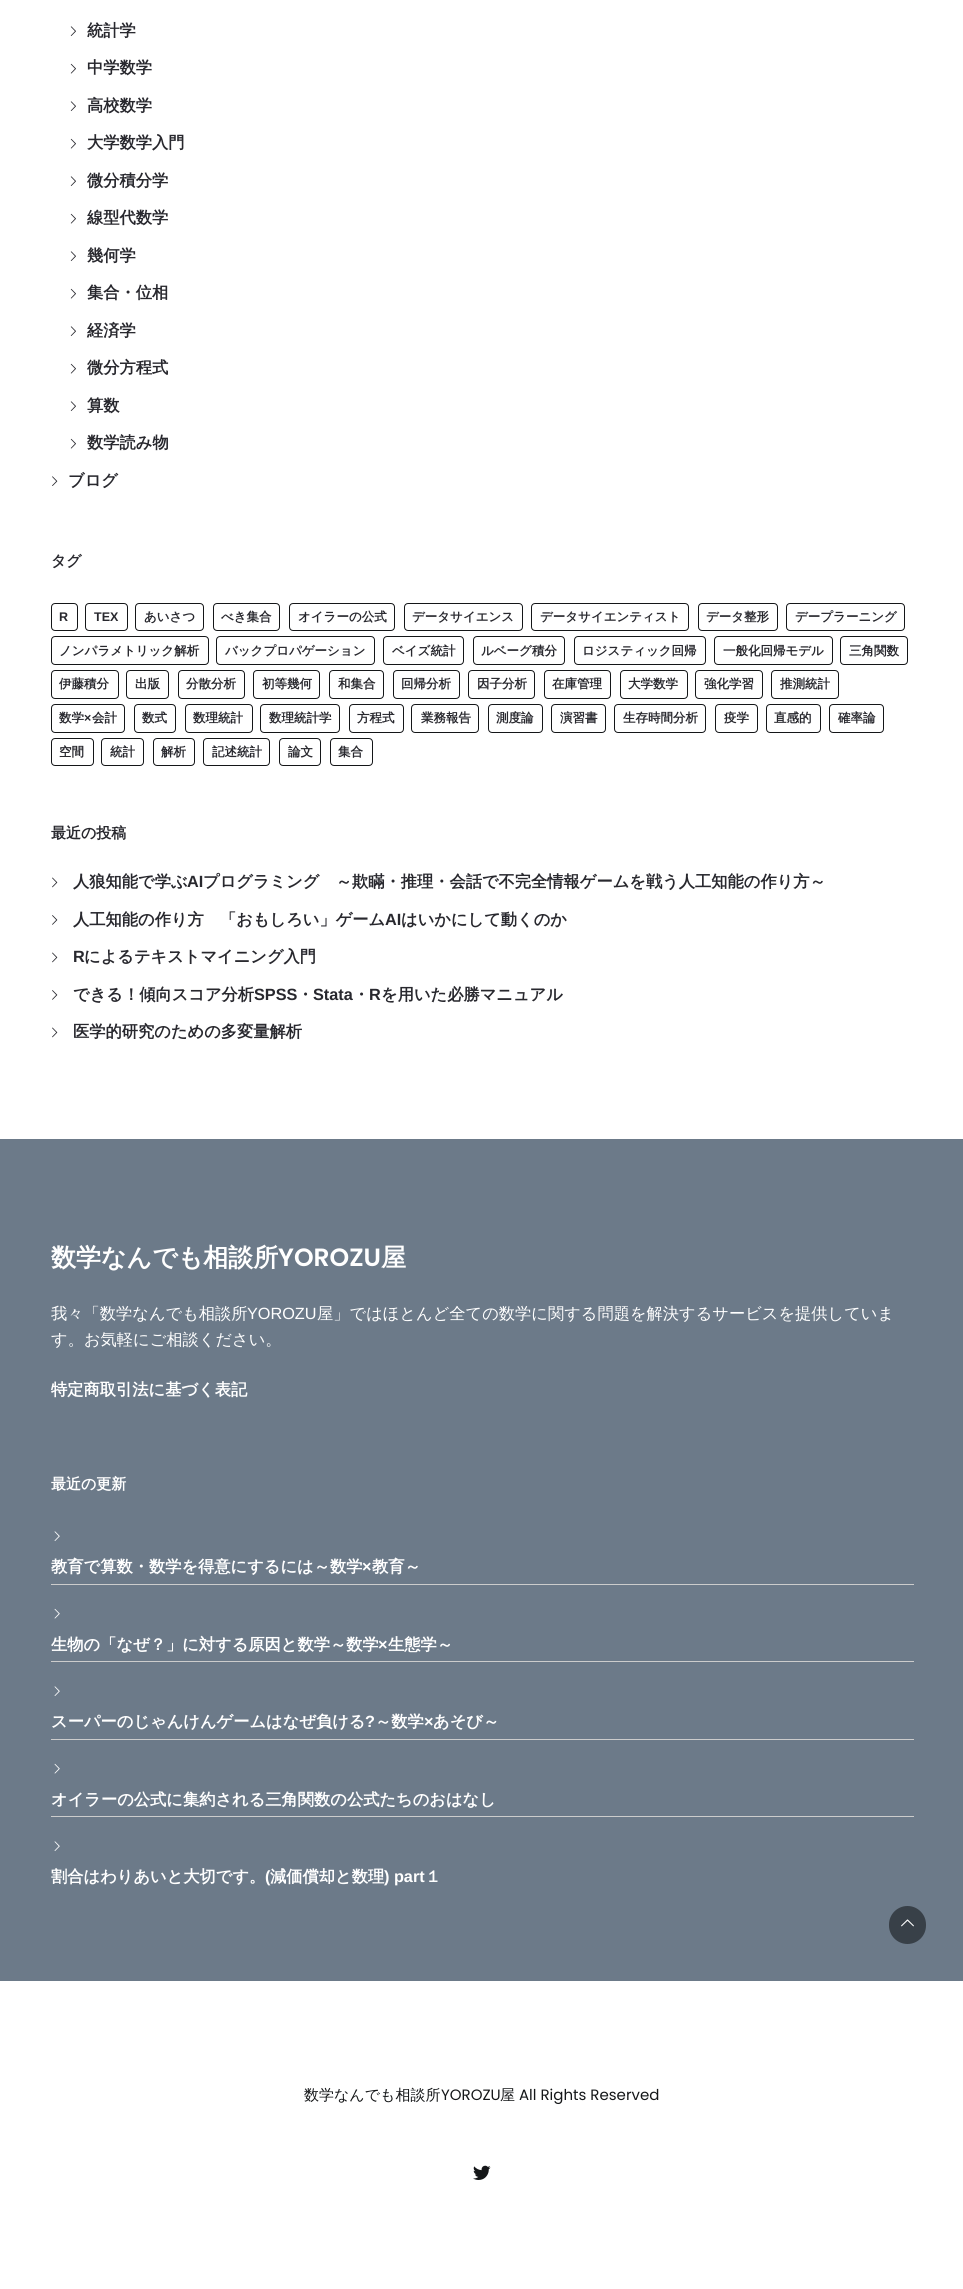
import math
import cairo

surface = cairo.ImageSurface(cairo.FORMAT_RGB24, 963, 2289)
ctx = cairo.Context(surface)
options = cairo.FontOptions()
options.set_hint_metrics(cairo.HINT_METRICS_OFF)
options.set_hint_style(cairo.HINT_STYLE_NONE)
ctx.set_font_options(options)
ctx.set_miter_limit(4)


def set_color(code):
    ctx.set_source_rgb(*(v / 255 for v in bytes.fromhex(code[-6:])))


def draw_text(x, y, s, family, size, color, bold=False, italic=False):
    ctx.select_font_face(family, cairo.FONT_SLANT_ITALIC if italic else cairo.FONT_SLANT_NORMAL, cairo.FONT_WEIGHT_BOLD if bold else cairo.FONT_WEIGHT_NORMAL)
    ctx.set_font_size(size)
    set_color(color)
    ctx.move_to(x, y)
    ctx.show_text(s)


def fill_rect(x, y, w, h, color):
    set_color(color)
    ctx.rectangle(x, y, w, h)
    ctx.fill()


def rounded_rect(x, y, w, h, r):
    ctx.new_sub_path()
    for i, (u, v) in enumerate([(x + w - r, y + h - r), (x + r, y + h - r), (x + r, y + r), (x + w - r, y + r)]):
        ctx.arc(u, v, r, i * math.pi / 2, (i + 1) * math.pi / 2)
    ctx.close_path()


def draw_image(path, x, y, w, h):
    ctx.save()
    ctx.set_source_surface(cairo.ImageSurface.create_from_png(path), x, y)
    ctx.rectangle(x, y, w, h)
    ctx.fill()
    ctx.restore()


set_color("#ffffff")
ctx.paint()
draw_image("assets/img1.png", 70, 26, 6, 10)
draw_text(87, 36, "統計学", "WenQuanYi Zen Hei", 16.25, "#28282e", bold=True)
draw_image("assets/img2.png", 70, 63, 6, 11)
draw_text(87, 73, "中学数学", "WenQuanYi Zen Hei", 16.25, "#28282e", bold=True)
draw_image("assets/img1.png", 70, 101, 6, 10)
draw_text(87, 111, "高校数学", "WenQuanYi Zen Hei", 16.25, "#28282e", bold=True)
draw_image("assets/img2.png", 70, 138, 6, 11)
draw_text(87, 148, "大学数学入門", "WenQuanYi Zen Hei", 16.25, "#28282e", bold=True)
draw_image("assets/img1.png", 70, 176, 6, 10)
draw_text(87, 186, "微分積分学", "WenQuanYi Zen Hei", 16.25, "#28282e", bold=True)
draw_image("assets/img2.png", 70, 213, 6, 11)
draw_text(87, 223, "線型代数学", "WenQuanYi Zen Hei", 16.25, "#28282e", bold=True)
draw_image("assets/img1.png", 70, 251, 6, 10)
draw_text(87, 261, "幾何学", "WenQuanYi Zen Hei", 16.25, "#28282e", bold=True)
draw_image("assets/img2.png", 70, 288, 6, 11)
draw_text(87, 298, "集合・位相", "WenQuanYi Zen Hei", 16.25, "#28282e", bold=True)
draw_image("assets/img1.png", 70, 326, 6, 10)
draw_text(87, 336, "経済学", "WenQuanYi Zen Hei", 16.25, "#28282e", bold=True)
draw_image("assets/img2.png", 70, 363, 6, 11)
draw_text(87, 373, "微分方程式", "WenQuanYi Zen Hei", 16.25, "#28282e", bold=True)
draw_image("assets/img1.png", 70, 401, 6, 10)
draw_text(87, 411, "算数", "WenQuanYi Zen Hei", 16.25, "#28282e", bold=True)
draw_image("assets/img2.png", 70, 438, 6, 11)
draw_text(87, 448, "数学読み物", "WenQuanYi Zen Hei", 16.25, "#28282e", bold=True)
draw_image("assets/img3.png", 52, 476, 6, 10)
draw_text(68, 486, "ブログ", "WenQuanYi Zen Hei", 16.25, "#28282e", bold=True)
draw_text(51, 566, "タグ", "WenQuanYi Zen Hei", 15, "#28282e", bold=True)
rounded_rect(51.5, 603.5, 26, 27, 3.5)
set_color("#141618")
ctx.set_line_width(1)
ctx.stroke()
draw_text(59, 621, "R", "Arimo", 12.5, "#28282e", bold=True)
rounded_rect(85.5, 603.5, 42, 27, 3.5)
set_color("#141618")
ctx.stroke()
draw_text(94, 621, "TEX", "Arimo", 12.5, "#28282e", bold=True)
rounded_rect(135.5, 603.5, 68, 27, 3.5)
set_color("#141618")
ctx.stroke()
draw_text(144, 621, "あいさつ", "WenQuanYi Zen Hei", 12.5, "#28282e", bold=True)
rounded_rect(213.5, 603.5, 66, 27, 3.5)
set_color("#141618")
ctx.stroke()
draw_text(221, 621, "べき集合", "WenQuanYi Zen Hei", 12.5, "#28282e", bold=True)
rounded_rect(289.5, 603.5, 105, 27, 3.5)
set_color("#141618")
ctx.stroke()
draw_text(298, 621, "オイラーの公式", "WenQuanYi Zen Hei", 12.5, "#28282e", bold=True)
rounded_rect(404.5, 603.5, 118, 27, 3.5)
set_color("#141618")
ctx.stroke()
draw_text(412, 621, "データサイエンス", "WenQuanYi Zen Hei", 12.5, "#28282e", bold=True)
rounded_rect(531.5, 603.5, 157, 27, 3.5)
set_color("#141618")
ctx.stroke()
draw_text(540, 621, "データサイエンティスト", "WenQuanYi Zen Hei", 12.5, "#28282e", bold=True)
rounded_rect(698.5, 603.5, 79, 27, 3.5)
set_color("#141618")
ctx.stroke()
draw_text(706, 621, "データ整形", "WenQuanYi Zen Hei", 12.5, "#28282e", bold=True)
rounded_rect(786.5, 603.5, 118, 27, 3.5)
set_color("#141618")
ctx.stroke()
draw_text(795, 621, "デープラーニング", "WenQuanYi Zen Hei", 12.5, "#28282e", bold=True)
rounded_rect(51.5, 636.5, 157, 28, 3.5)
set_color("#141618")
ctx.stroke()
draw_text(59, 655, "ノンパラメトリック解析", "WenQuanYi Zen Hei", 12.5, "#28282e", bold=True)
rounded_rect(216.5, 636.5, 158, 28, 3.5)
set_color("#141618")
ctx.stroke()
draw_text(225, 655, "バックプロパゲーション", "WenQuanYi Zen Hei", 12.5, "#28282e", bold=True)
rounded_rect(383.5, 636.5, 80, 28, 3.5)
set_color("#141618")
ctx.stroke()
draw_text(392, 655, "ベイズ統計", "WenQuanYi Zen Hei", 12.5, "#28282e", bold=True)
rounded_rect(473.5, 636.5, 91, 28, 3.5)
set_color("#141618")
ctx.stroke()
draw_text(481, 655, "ルベーグ積分", "WenQuanYi Zen Hei", 12.5, "#28282e", bold=True)
rounded_rect(574.5, 636.5, 131, 28, 3.5)
set_color("#141618")
ctx.stroke()
draw_text(582, 655, "ロジスティック回帰", "WenQuanYi Zen Hei", 12.5, "#28282e", bold=True)
rounded_rect(714.5, 636.5, 118, 28, 3.5)
set_color("#141618")
ctx.stroke()
draw_text(723, 655, "一般化回帰モデル", "WenQuanYi Zen Hei", 12.5, "#28282e", bold=True)
rounded_rect(840.5, 636.5, 67, 28, 3.5)
set_color("#141618")
ctx.stroke()
draw_text(849, 655, "三角関数", "WenQuanYi Zen Hei", 12.5, "#28282e", bold=True)
rounded_rect(51.5, 670.5, 67, 28, 3.5)
set_color("#141618")
ctx.stroke()
draw_text(59, 688, "伊藤積分", "WenQuanYi Zen Hei", 12.5, "#28282e", bold=True)
rounded_rect(126.5, 670.5, 42, 28, 3.5)
set_color("#141618")
ctx.stroke()
draw_text(135, 688, "出版", "WenQuanYi Zen Hei", 12.5, "#28282e", bold=True)
rounded_rect(178.5, 670.5, 66, 28, 3.5)
set_color("#141618")
ctx.stroke()
draw_text(186, 688, "分散分析", "WenQuanYi Zen Hei", 12.5, "#28282e", bold=True)
rounded_rect(253.5, 670.5, 66, 28, 3.5)
set_color("#141618")
ctx.stroke()
draw_text(262, 688, "初等幾何", "WenQuanYi Zen Hei", 12.5, "#28282e", bold=True)
rounded_rect(329.5, 670.5, 54, 28, 3.5)
set_color("#141618")
ctx.stroke()
draw_text(338, 688, "和集合", "WenQuanYi Zen Hei", 12.5, "#28282e", bold=True)
rounded_rect(393.5, 670.5, 66, 28, 3.5)
set_color("#141618")
ctx.stroke()
draw_text(401, 688, "回帰分析", "WenQuanYi Zen Hei", 12.5, "#28282e", bold=True)
rounded_rect(468.5, 670.5, 66, 28, 3.5)
set_color("#141618")
ctx.stroke()
draw_text(477, 688, "因子分析", "WenQuanYi Zen Hei", 12.5, "#28282e", bold=True)
rounded_rect(544.5, 670.5, 66, 28, 3.5)
set_color("#141618")
ctx.stroke()
draw_text(552, 688, "在庫管理", "WenQuanYi Zen Hei", 12.5, "#28282e", bold=True)
rounded_rect(620.5, 670.5, 67, 28, 3.5)
set_color("#141618")
ctx.stroke()
draw_text(628, 688, "大学数学", "WenQuanYi Zen Hei", 12.5, "#28282e", bold=True)
rounded_rect(695.5, 670.5, 67, 28, 3.5)
set_color("#141618")
ctx.stroke()
draw_text(704, 688, "強化学習", "WenQuanYi Zen Hei", 12.5, "#28282e", bold=True)
rounded_rect(771.5, 670.5, 67, 28, 3.5)
set_color("#141618")
ctx.stroke()
draw_text(780, 688, "推測統計", "WenQuanYi Zen Hei", 12.5, "#28282e", bold=True)
rounded_rect(51.5, 704.5, 73, 28, 3.5)
set_color("#141618")
ctx.stroke()
draw_text(59, 722, "数学", "WenQuanYi Zen Hei", 12.5, "#28282e", bold=True)
draw_text(84, 722, "×", "Arimo", 12.5, "#28282e", bold=True)
draw_text(92, 722, "会計", "WenQuanYi Zen Hei", 12.5, "#28282e", bold=True)
rounded_rect(134.5, 704.5, 41, 28, 3.5)
set_color("#141618")
ctx.stroke()
draw_text(142, 722, "数式", "WenQuanYi Zen Hei", 12.5, "#28282e", bold=True)
rounded_rect(185.5, 704.5, 67, 28, 3.5)
set_color("#141618")
ctx.stroke()
draw_text(193, 722, "数理統計", "WenQuanYi Zen Hei", 12.5, "#28282e", bold=True)
rounded_rect(260.5, 704.5, 79, 28, 3.5)
set_color("#141618")
ctx.stroke()
draw_text(269, 722, "数理統計学", "WenQuanYi Zen Hei", 12.5, "#28282e", bold=True)
rounded_rect(349.5, 704.5, 54, 28, 3.5)
set_color("#141618")
ctx.stroke()
draw_text(357, 722, "方程式", "WenQuanYi Zen Hei", 12.5, "#28282e", bold=True)
rounded_rect(411.5, 704.5, 67, 28, 3.5)
set_color("#141618")
ctx.stroke()
draw_text(421, 722, "業務報告", "WenQuanYi Zen Hei", 12.5, "#28282e", bold=True)
rounded_rect(488.5, 704.5, 54, 28, 3.5)
set_color("#141618")
ctx.stroke()
draw_text(496, 722, "測度論", "WenQuanYi Zen Hei", 12.5, "#28282e", bold=True)
rounded_rect(551.5, 704.5, 54, 28, 3.5)
set_color("#141618")
ctx.stroke()
draw_text(560, 722, "演習書", "WenQuanYi Zen Hei", 12.5, "#28282e", bold=True)
rounded_rect(614.5, 704.5, 91, 28, 3.5)
set_color("#141618")
ctx.stroke()
draw_text(623, 722, "生存時間分析", "WenQuanYi Zen Hei", 12.5, "#28282e", bold=True)
rounded_rect(715.5, 704.5, 42, 28, 3.5)
set_color("#141618")
ctx.stroke()
draw_text(724, 722, "疫学", "WenQuanYi Zen Hei", 12.5, "#28282e", bold=True)
rounded_rect(766.5, 704.5, 54, 28, 3.5)
set_color("#141618")
ctx.stroke()
draw_text(774, 722, "直感的", "WenQuanYi Zen Hei", 12.5, "#28282e", bold=True)
rounded_rect(829.5, 704.5, 54, 28, 3.5)
set_color("#141618")
ctx.stroke()
draw_text(838, 722, "確率論", "WenQuanYi Zen Hei", 12.5, "#28282e", bold=True)
rounded_rect(51.5, 738.5, 42, 27, 3.5)
set_color("#141618")
ctx.stroke()
draw_text(59, 756, "空間", "WenQuanYi Zen Hei", 12.5, "#28282e", bold=True)
rounded_rect(101.5, 738.5, 42, 27, 3.5)
set_color("#141618")
ctx.stroke()
draw_text(110, 756, "統計", "WenQuanYi Zen Hei", 12.5, "#28282e", bold=True)
rounded_rect(153.5, 738.5, 41, 27, 3.5)
set_color("#141618")
ctx.stroke()
draw_text(161, 756, "解析", "WenQuanYi Zen Hei", 12.5, "#28282e", bold=True)
rounded_rect(203.5, 738.5, 66, 27, 3.5)
set_color("#141618")
ctx.stroke()
draw_text(212, 756, "記述統計", "WenQuanYi Zen Hei", 12.5, "#28282e", bold=True)
rounded_rect(279.5, 738.5, 41, 27, 3.5)
set_color("#141618")
ctx.stroke()
draw_text(288, 756, "論文", "WenQuanYi Zen Hei", 12.5, "#28282e", bold=True)
rounded_rect(330.5, 738.5, 42, 27, 3.5)
set_color("#141618")
ctx.stroke()
draw_text(338, 756, "集合", "WenQuanYi Zen Hei", 12.5, "#28282e", bold=True)
draw_text(51, 838, "最近の投稿", "WenQuanYi Zen Hei", 15, "#28282e", bold=True)
draw_image("assets/img4.png", 52, 877, 6, 11)
draw_text(73, 887, "人狼知能で学ぶ", "WenQuanYi Zen Hei", 16.25, "#28282e", bold=True)
draw_text(187, 887, "AI", "Arimo", 16.25, "#28282e", bold=True)
draw_text(203, 887, "プログラミング　～欺瞞・推理・会話で不完全情報ゲームを戦う人工知能の作り方～", "WenQuanYi Zen Hei", 16.25, "#28282e", bold=True)
draw_image("assets/img5.png", 52, 915, 6, 10)
draw_text(73, 925, "人工知能の作り方　「おもしろい」ゲーム", "WenQuanYi Zen Hei", 16.25, "#28282e", bold=True)
draw_text(385, 925, "AI", "Arimo", 16.25, "#28282e", bold=True)
draw_text(401, 925, "はいかにして動くのか", "WenQuanYi Zen Hei", 16.25, "#28282e", bold=True)
draw_image("assets/img4.png", 52, 952, 6, 11)
draw_text(73, 962, "R", "Arimo", 16.25, "#28282e", bold=True)
draw_text(84, 962, "によるテキストマイニング入門", "WenQuanYi Zen Hei", 16.25, "#28282e", bold=True)
draw_image("assets/img5.png", 52, 990, 6, 10)
draw_text(73, 1000, "できる！傾向スコア分析", "WenQuanYi Zen Hei", 16.25, "#28282e", bold=True)
draw_text(254, 1000, "SPSS", "Arimo", 16.25, "#28282e", bold=True)
draw_text(297, 1000, "・", "WenQuanYi Zen Hei", 16.25, "#28282e", bold=True)
draw_text(313, 1000, "Stata", "Arimo", 16.25, "#28282e", bold=True)
draw_text(353, 1000, "・", "WenQuanYi Zen Hei", 16.25, "#28282e", bold=True)
draw_text(369, 1000, "R", "Arimo", 16.25, "#28282e", bold=True)
draw_text(381, 1000, "を用いた必勝マニュアル", "WenQuanYi Zen Hei", 16.25, "#28282e", bold=True)
draw_image("assets/img4.png", 52, 1027, 6, 11)
draw_text(73, 1037, "医学的研究のための多変量解析", "WenQuanYi Zen Hei", 16.25, "#28282e", bold=True)
fill_rect(0, 1139, 963, 842, "#6c7a89")
draw_text(51, 1266, "数学なんでも相談所", "WenQuanYi Zen Hei", 25, "#ffffff", bold=True)
draw_text(278, 1266, "YOROZU", "Poppins SemiBold", 25, "#ffffff")
draw_text(381, 1266, "屋", "WenQuanYi Zen Hei", 25, "#ffffff", bold=True)
draw_text(51, 1319, "我々「数学なんでも相談所", "WenQuanYi Zen Hei Medium", 16.25, "#ffffff")
draw_text(247, 1319, "YOROZU", "Arimo", 16.25, "#ffffff")
draw_text(317, 1319, "屋」ではほとんど全ての数学に関する問題を解決するサービスを提供していま", "WenQuanYi Zen Hei Medium", 16.25, "#ffffff")
draw_text(51, 1345, "す。お気軽にご相談ください。", "WenQuanYi Zen Hei Medium", 16.25, "#ffffff")
draw_text(51, 1395, "特定商取引法に基づく表記", "WenQuanYi Zen Hei", 16.25, "#ffffff", bold=True)
draw_text(51, 1489, "最近の更新", "WenQuanYi Zen Hei", 15, "#ffffff", bold=True)
fill_rect(51, 1584, 863, 1, "#cccccc")
draw_image("assets/img6.png", 54, 1531, 6, 10)
draw_text(51, 1572, "教育で算数・数学を得意にするには～数学", "WenQuanYi Zen Hei", 16.25, "#ffffff", bold=True)
draw_text(362, 1572, "×", "Arimo", 16.25, "#ffffff", bold=True)
draw_text(372, 1572, "教育～", "WenQuanYi Zen Hei", 16.25, "#ffffff", bold=True)
fill_rect(51, 1661, 863, 1, "#cccccc")
draw_image("assets/img7.png", 54, 1608, 6, 11)
draw_text(51, 1650, "生物の「なぜ？」に対する原因と数学～数学", "WenQuanYi Zen Hei", 16.25, "#ffffff", bold=True)
draw_text(378, 1650, "×", "Arimo", 16.25, "#ffffff", bold=True)
draw_text(388, 1650, "生態学～", "WenQuanYi Zen Hei", 16.25, "#ffffff", bold=True)
fill_rect(51, 1739, 863, 1, "#cccccc")
draw_image("assets/img6.png", 54, 1686, 6, 10)
draw_text(51, 1727, "スーパーのじゃんけんゲームはなぜ負ける", "WenQuanYi Zen Hei", 16.25, "#ffffff", bold=True)
draw_text(365, 1727, "?", "Arimo", 16.25, "#ffffff", bold=True)
draw_text(375, 1727, "～数学", "WenQuanYi Zen Hei", 16.25, "#ffffff", bold=True)
draw_text(424, 1727, "×", "Arimo", 16.25, "#ffffff", bold=True)
draw_text(433, 1727, "あそび～", "WenQuanYi Zen Hei", 16.25, "#ffffff", bold=True)
fill_rect(51, 1816, 863, 1, "#cccccc")
draw_image("assets/img7.png", 54, 1763, 6, 11)
draw_text(51, 1805, "オイラーの公式に集約される三角関数の公式たちのおはなし", "WenQuanYi Zen Hei", 16.25, "#ffffff", bold=True)
draw_image("assets/img6.png", 54, 1841, 6, 10)
draw_text(51, 1882, "割合はわりあいと大切です。", "WenQuanYi Zen Hei", 16.25, "#ffffff", bold=True)
draw_text(265, 1882, "(", "Arimo", 16.25, "#ffffff", bold=True)
draw_text(270, 1882, "減価償却と数理", "WenQuanYi Zen Hei", 16.25, "#ffffff", bold=True)
draw_text(384, 1882, ") part", "Arimo", 16.25, "#ffffff", bold=True)
draw_text(425, 1882, "１", "WenQuanYi Zen Hei", 16.25, "#ffffff", bold=True)
draw_text(304, 2100, "数学なんでも相談所", "WenQuanYi Zen Hei Medium", 15, "#141618")
draw_text(441, 2100, "YOROZU", "Poppins", 15, "#141618")
draw_text(500, 2100, "屋", "WenQuanYi Zen Hei Medium", 15, "#141618")
draw_text(519, 2100, "All Rights Reserved", "Poppins", 15, "#141618")
draw_image("assets/img8.png", 473, 2165, 18, 15)
set_color("#384048")
rounded_rect(889, 1906, 37, 38, 18.5)
ctx.fill()
draw_image("assets/img9.png", 901, 1919, 13, 8)
surface.write_to_png("output.png")
